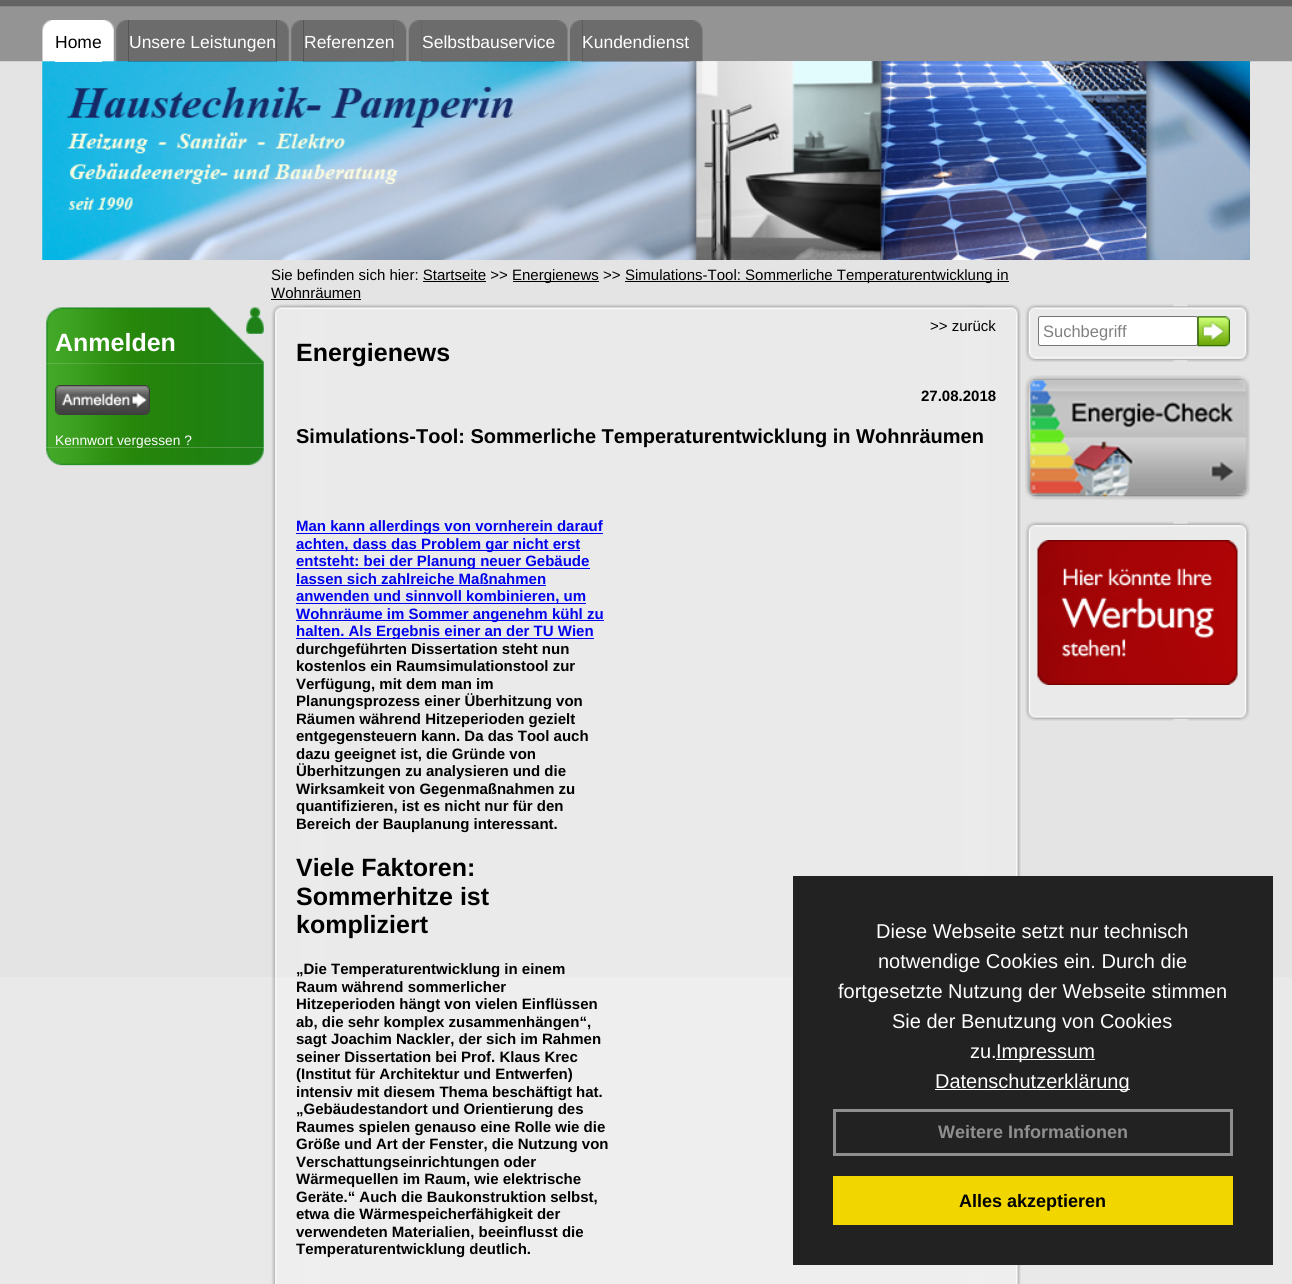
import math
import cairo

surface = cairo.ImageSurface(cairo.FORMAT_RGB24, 1292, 1284)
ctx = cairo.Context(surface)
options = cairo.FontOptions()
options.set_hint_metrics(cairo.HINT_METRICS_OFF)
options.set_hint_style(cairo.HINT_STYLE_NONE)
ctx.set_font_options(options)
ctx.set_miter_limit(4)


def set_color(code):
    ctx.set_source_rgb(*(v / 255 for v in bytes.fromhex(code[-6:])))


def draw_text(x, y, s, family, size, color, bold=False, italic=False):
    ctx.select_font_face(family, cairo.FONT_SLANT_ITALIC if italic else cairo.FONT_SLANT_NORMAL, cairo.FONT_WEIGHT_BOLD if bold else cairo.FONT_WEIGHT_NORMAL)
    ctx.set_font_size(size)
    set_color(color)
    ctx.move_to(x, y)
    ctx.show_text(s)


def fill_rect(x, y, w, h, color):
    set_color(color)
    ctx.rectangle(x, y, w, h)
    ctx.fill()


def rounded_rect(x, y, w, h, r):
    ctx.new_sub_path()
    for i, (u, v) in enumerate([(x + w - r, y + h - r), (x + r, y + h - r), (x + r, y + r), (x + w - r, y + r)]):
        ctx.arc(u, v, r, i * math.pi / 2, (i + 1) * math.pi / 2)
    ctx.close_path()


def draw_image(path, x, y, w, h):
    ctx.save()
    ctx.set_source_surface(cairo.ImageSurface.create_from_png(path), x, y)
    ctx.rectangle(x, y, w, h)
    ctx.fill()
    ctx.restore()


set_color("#e9e9e9")
ctx.paint()
fill_rect(0, 61, 1292, 916, "#e4e4e4")
draw_image("assets/img1.png", 0, 0, 1292, 62)
draw_image("assets/img12.png", 42, 61, 1208, 199)
draw_image("assets/img13.png", 42, 61, 1208, 199)
draw_image("assets/img2.png", 42, 20, 13, 42)
fill_rect(55, 20, 47, 42, "#ffffff")
draw_text(55, 48, "Home", "Liberation Sans", 17.5, "#000000")
draw_image("assets/img3.png", 102, 20, 12, 42)
draw_image("assets/img4.png", 116, 20, 13, 42)
ctx.set_source_rgba(0, 0, 0, 0.27)
ctx.rectangle(128, 20, 149, 42)
ctx.fill()
draw_text(129, 48, "Unsere Leistungen", "Liberation Sans", 17.5, "#ffffff")
draw_image("assets/img5.png", 276, 20, 13, 42)
draw_image("assets/img6.png", 291, 20, 13, 42)
ctx.set_source_rgba(0, 0, 0, 0.27)
ctx.rectangle(303, 20, 91, 42)
ctx.fill()
draw_text(304, 48, "Referenzen", "Liberation Sans", 17.5, "#ffffff")
draw_image("assets/img7.png", 393, 20, 14, 42)
draw_image("assets/img8.png", 408, 20, 14, 42)
ctx.set_source_rgba(0, 0, 0, 0.27)
ctx.rectangle(421, 20, 134, 42)
ctx.fill()
draw_text(422, 48, "Selbstbauservice", "Liberation Sans", 17.5, "#ffffff")
draw_image("assets/img9.png", 555, 20, 13, 42)
draw_image("assets/img10.png", 570, 20, 13, 42)
ctx.set_source_rgba(0, 0, 0, 0.27)
ctx.rectangle(582, 20, 108, 42)
ctx.fill()
draw_text(582, 48, "Kundendienst", "Liberation Sans", 17.5, "#ffffff")
draw_image("assets/img11.png", 690, 20, 13, 42)
draw_text(271, 280, "Sie befinden sich hier: Startseite >>", "Liberation Sans", 15, "#000000")
fill_rect(513, 281, 86, 1, "#000000")
draw_text(512, 280, "Energienews >>", "Liberation Sans", 15, "#000000")
fill_rect(625, 281, 384, 1, "#000000")
draw_text(625, 280, "Simulations-Tool: Sommerliche Temperaturentwicklung in", "Liberation Sans", 15, "#000000")
fill_rect(423, 281, 63, 1, "#000000")
draw_text(271, 298, "Wohnräumen", "Liberation Sans", 15, "#000000")
fill_rect(271, 299, 90, 1, "#000000")
draw_image("assets/img14.png", 46, 307, 218, 57)
draw_text(55, 351, "Anmelden", "Liberation Sans", 25, "#ffffff", bold=True)
draw_image("assets/img15.png", 46, 363, 218, 85)
draw_image("assets/img16.png", 55, 385, 95, 30)
draw_image("assets/img17.png", 46, 447, 218, 19)
draw_text(55, 445, "Kennwort vergessen ?", "Liberation Sans", 13.75, "#ffffff")
draw_image("assets/img18.png", 271, 304, 750, 13)
draw_image("assets/img19.png", 271, 316, 750, 968)
draw_text(930, 331, ">> zurück", "Liberation Sans", 15, "#000000")
draw_text(296, 361, "Energienews", "Liberation Sans", 25, "#000000", bold=True)
draw_text(921, 401, "27.08.2018", "Liberation Sans", 15, "#000000", bold=True)
draw_text(296, 443, "Simulations-Tool: Sommerliche Temperaturentwicklung in Wohnräumen", "Liberation Sans", 20, "#000000", bold=True)
fill_rect(296, 533, 307, 1, "#0000ee")
draw_text(296, 531, "Man kann allerdings von vornherein darauf", "Liberation Sans", 15, "#0000ee", bold=True)
fill_rect(296, 550, 284, 1, "#0000ee")
draw_text(296, 549, "achten, dass das Problem gar nicht erst", "Liberation Sans", 15, "#0000ee", bold=True)
fill_rect(296, 568, 294, 1, "#0000ee")
draw_text(296, 566, "entsteht: bei der Planung neuer Gebäude", "Liberation Sans", 15, "#0000ee", bold=True)
draw_text(296, 584, "lassen sich zahlreiche Maßnahmen", "Liberation Sans", 15, "#0000ee", bold=True)
fill_rect(296, 585, 250, 1, "#0000ee")
fill_rect(296, 603, 290, 1, "#0000ee")
draw_text(296, 601, "anwenden und sinnvoll kombinieren, um", "Liberation Sans", 15, "#0000ee", bold=True)
fill_rect(296, 620, 308, 1, "#0000ee")
draw_text(296, 619, "Wohnräume im Sommer angenehm kühl zu", "Liberation Sans", 15, "#0000ee", bold=True)
fill_rect(296, 638, 298, 1, "#0000ee")
draw_text(296, 636, "halten. Als Ergebnis einer an der TU Wien", "Liberation Sans", 15, "#0000ee", bold=True)
draw_text(296, 654, "durchgeführten Dissertation steht nun", "Liberation Sans", 15, "#000000", bold=True)
draw_text(296, 671, "kostenlos ein Raumsimulationstool zur", "Liberation Sans", 15, "#000000", bold=True)
draw_text(296, 689, "Verfügung, mit dem man im", "Liberation Sans", 15, "#000000", bold=True)
draw_text(296, 706, "Planungsprozess einer Überhitzung von", "Liberation Sans", 15, "#000000", bold=True)
draw_text(296, 724, "Räumen während Hitzeperioden gezielt", "Liberation Sans", 15, "#000000", bold=True)
draw_text(296, 741, "entgegensteuern kann. Da das Tool auch", "Liberation Sans", 15, "#000000", bold=True)
draw_text(296, 759, "dazu geeignet ist, die Gründe von", "Liberation Sans", 15, "#000000", bold=True)
draw_text(296, 776, "Überhitzungen zu analysieren und die", "Liberation Sans", 15, "#000000", bold=True)
draw_text(296, 794, "Wirksamkeit von Gegenmaßnahmen zu", "Liberation Sans", 15, "#000000", bold=True)
draw_text(296, 811, "quantifizieren, ist es nicht nur für den", "Liberation Sans", 15, "#000000", bold=True)
draw_text(296, 829, "Bereich der Bauplanung interessant.", "Liberation Sans", 15, "#000000", bold=True)
draw_text(296, 876, "Viele Faktoren:", "Liberation Sans", 25, "#000000", bold=True)
draw_text(296, 905, "Sommerhitze ist", "Liberation Sans", 25, "#000000", bold=True)
draw_text(296, 933, "kompliziert", "Liberation Sans", 25, "#000000", bold=True)
draw_text(296, 974, "„Die Temperaturentwicklung in einem", "Liberation Sans", 15, "#000000", bold=True)
draw_text(296, 992, "Raum während sommerlicher", "Liberation Sans", 15, "#000000", bold=True)
draw_text(296, 1009, "Hitzeperioden hängt von vielen Einflüssen", "Liberation Sans", 15, "#000000", bold=True)
draw_text(296, 1027, "ab, die sehr komplex zusammenhängen“,", "Liberation Sans", 15, "#000000", bold=True)
draw_text(296, 1044, "sagt Joachim Nackler, der sich im Rahmen", "Liberation Sans", 15, "#000000", bold=True)
draw_text(296, 1062, "seiner Dissertation bei Prof. Klaus Krec", "Liberation Sans", 15, "#000000", bold=True)
draw_text(296, 1079, "(Institut für Architektur und Entwerfen)", "Liberation Sans", 15, "#000000", bold=True)
draw_text(296, 1097, "intensiv mit diesem Thema beschäftigt hat.", "Liberation Sans", 15, "#000000", bold=True)
draw_text(296, 1114, "„Gebäudestandort und Orientierung des", "Liberation Sans", 15, "#000000", bold=True)
draw_text(296, 1132, "Raumes spielen genauso eine Rolle wie die", "Liberation Sans", 15, "#000000", bold=True)
draw_text(296, 1149, "Größe und Art der Fenster, die Nutzung von", "Liberation Sans", 15, "#000000", bold=True)
draw_text(296, 1167, "Verschattungseinrichtungen oder", "Liberation Sans", 15, "#000000", bold=True)
draw_text(296, 1184, "Wärmequellen im Raum, wie elektrische", "Liberation Sans", 15, "#000000", bold=True)
draw_text(296, 1202, "Geräte.“ Auch die Baukonstruktion selbst,", "Liberation Sans", 15, "#000000", bold=True)
draw_text(296, 1219, "etwa die Wärmespeicherfähigkeit der", "Liberation Sans", 15, "#000000", bold=True)
draw_text(296, 1237, "verwendeten Materialien, beeinflusst die", "Liberation Sans", 15, "#000000", bold=True)
draw_text(296, 1254, "Temperaturentwicklung deutlich.", "Liberation Sans", 15, "#000000", bold=True)
draw_image("assets/img20.png", 1025, 304, 225, 13)
draw_image("assets/img21.png", 1025, 316, 225, 34)
set_color("#ffffff")
rounded_rect(1038.5, 316.5, 159, 29, 2)
ctx.fill_preserve()
set_color("#767676")
ctx.set_line_width(1)
ctx.stroke()
draw_text(1043, 337, "Suchbegriff", "Liberation Sans", 16.5, "#808080")
draw_image("assets/img22.png", 1197, 316, 33, 31)
draw_image("assets/img23.png", 1025, 350, 225, 12)
draw_image("assets/img24.png", 1025, 375, 225, 125)
draw_image("assets/img25.png", 1025, 521, 225, 13)
draw_image("assets/img26.png", 1025, 533, 225, 176)
draw_image("assets/img27.png", 1037, 540, 201, 145)
draw_image("assets/img28.png", 1025, 708, 225, 13)
fill_rect(793, 876, 480, 389, "#222222")
draw_text(876, 938, "Diese Webseite setzt nur technisch", "Liberation Sans", 20, "#ffffff")
draw_text(878, 968, "notwendige Cookies ein. Durch die", "Liberation Sans", 20, "#ffffff")
draw_text(838, 998, "fortgesetzte Nutzung der Webseite stimmen", "Liberation Sans", 20, "#ffffff")
draw_text(892, 1028, "Sie der Benutzung von Cookies", "Liberation Sans", 20, "#ffffff")
draw_text(970, 1058, "zu.", "Liberation Sans", 20, "#ffffff")
fill_rect(996, 1059, 99, 1, "#ffffff")
draw_text(996, 1058, "Impressum", "Liberation Sans", 20, "#ffffff")
fill_rect(935, 1089, 195, 1, "#ffffff")
draw_text(935, 1088, "Datenschutzerklärung", "Liberation Sans", 20, "#ffffff")
ctx.rectangle(834.5, 1110.5, 397, 44)
set_color("#8f8f8f")
ctx.set_line_width(3)
ctx.stroke()
draw_text(938, 1138, "Weitere Informationen", "Liberation Sans", 18, "#8f8f8f", bold=True)
fill_rect(833, 1176, 400, 49, "#f1d600")
draw_text(959, 1207, "Alles akzeptieren", "Liberation Sans", 18, "#000000", bold=True)
surface.write_to_png("output.png")
